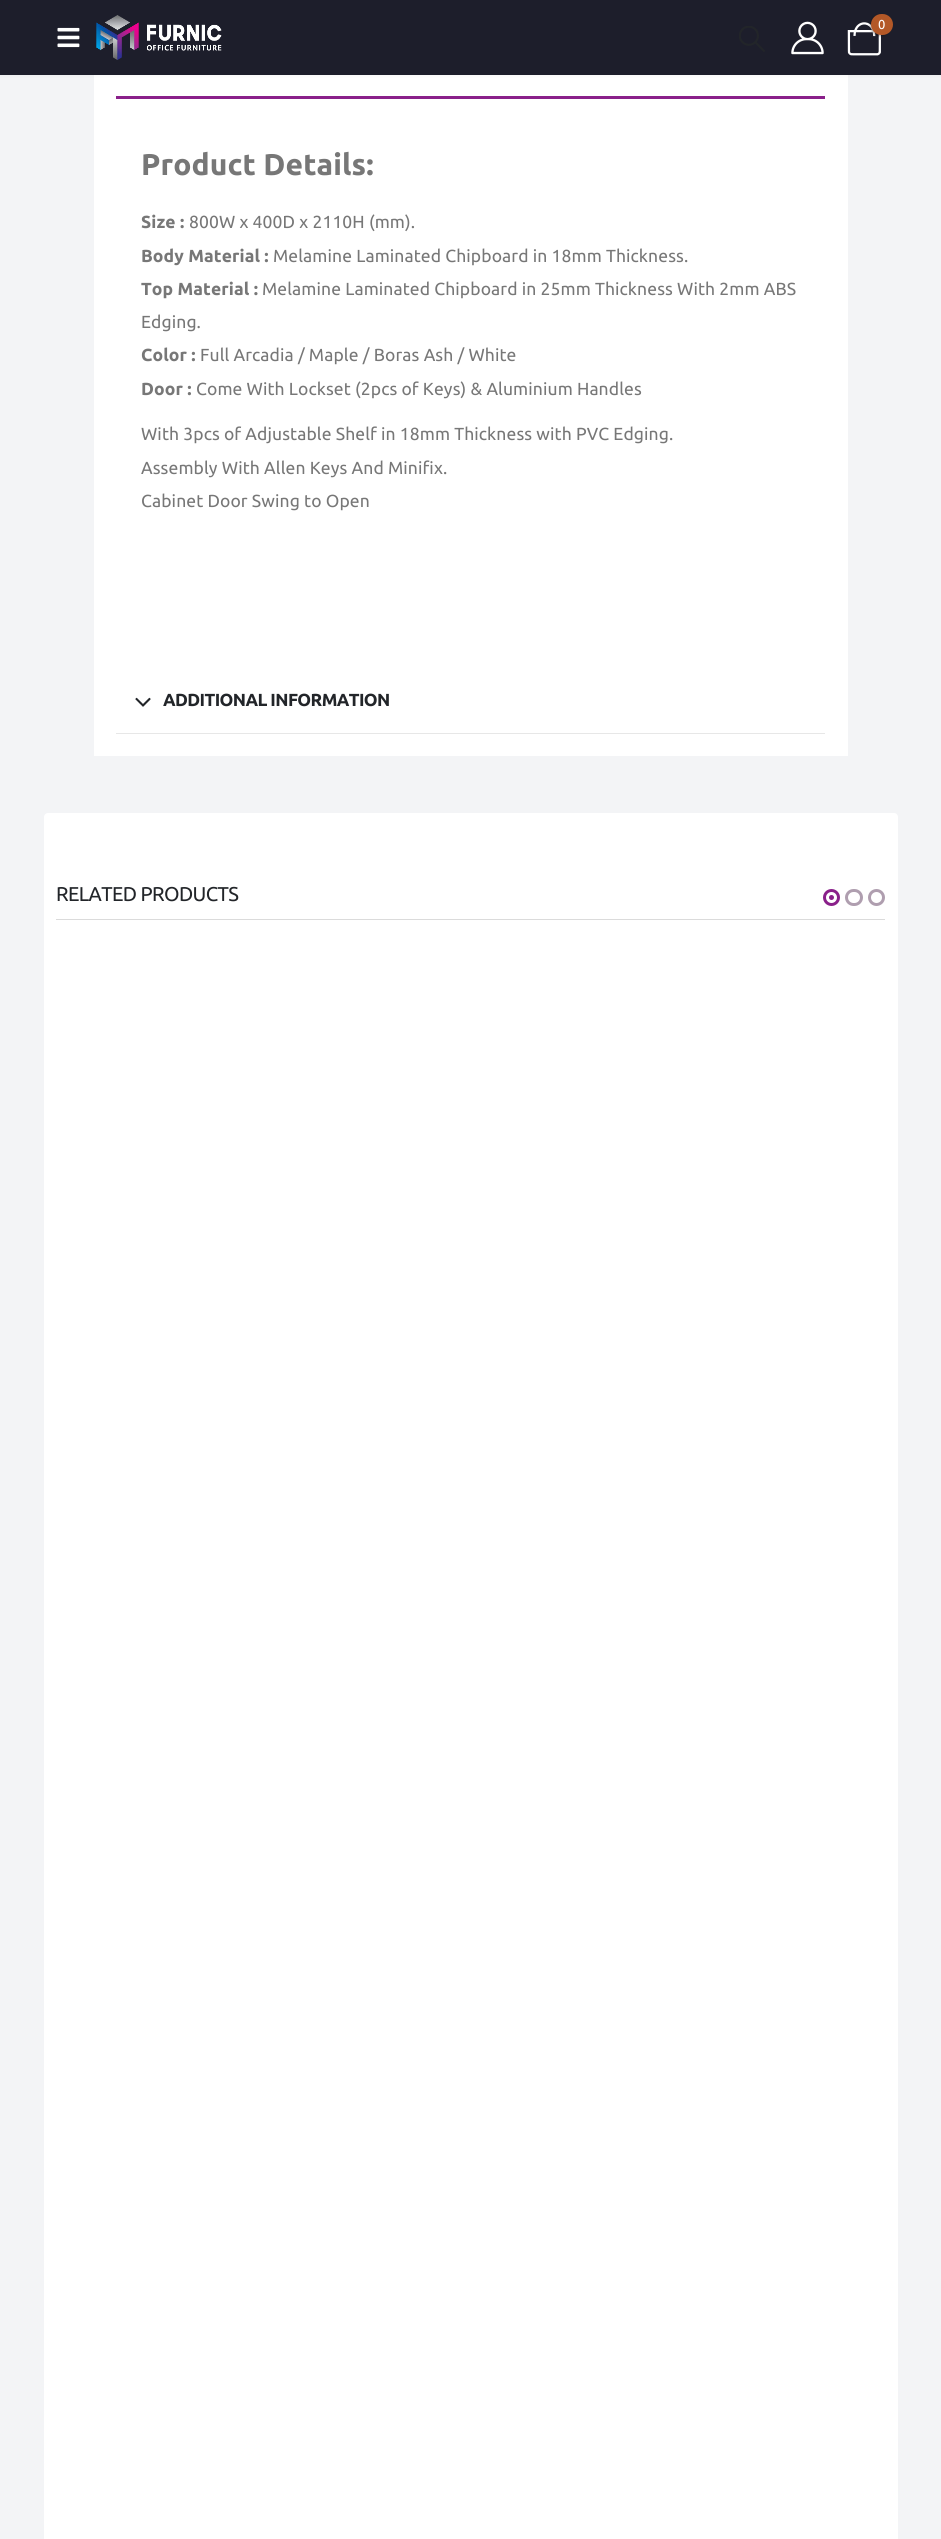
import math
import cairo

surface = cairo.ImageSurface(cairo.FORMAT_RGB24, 941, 2539)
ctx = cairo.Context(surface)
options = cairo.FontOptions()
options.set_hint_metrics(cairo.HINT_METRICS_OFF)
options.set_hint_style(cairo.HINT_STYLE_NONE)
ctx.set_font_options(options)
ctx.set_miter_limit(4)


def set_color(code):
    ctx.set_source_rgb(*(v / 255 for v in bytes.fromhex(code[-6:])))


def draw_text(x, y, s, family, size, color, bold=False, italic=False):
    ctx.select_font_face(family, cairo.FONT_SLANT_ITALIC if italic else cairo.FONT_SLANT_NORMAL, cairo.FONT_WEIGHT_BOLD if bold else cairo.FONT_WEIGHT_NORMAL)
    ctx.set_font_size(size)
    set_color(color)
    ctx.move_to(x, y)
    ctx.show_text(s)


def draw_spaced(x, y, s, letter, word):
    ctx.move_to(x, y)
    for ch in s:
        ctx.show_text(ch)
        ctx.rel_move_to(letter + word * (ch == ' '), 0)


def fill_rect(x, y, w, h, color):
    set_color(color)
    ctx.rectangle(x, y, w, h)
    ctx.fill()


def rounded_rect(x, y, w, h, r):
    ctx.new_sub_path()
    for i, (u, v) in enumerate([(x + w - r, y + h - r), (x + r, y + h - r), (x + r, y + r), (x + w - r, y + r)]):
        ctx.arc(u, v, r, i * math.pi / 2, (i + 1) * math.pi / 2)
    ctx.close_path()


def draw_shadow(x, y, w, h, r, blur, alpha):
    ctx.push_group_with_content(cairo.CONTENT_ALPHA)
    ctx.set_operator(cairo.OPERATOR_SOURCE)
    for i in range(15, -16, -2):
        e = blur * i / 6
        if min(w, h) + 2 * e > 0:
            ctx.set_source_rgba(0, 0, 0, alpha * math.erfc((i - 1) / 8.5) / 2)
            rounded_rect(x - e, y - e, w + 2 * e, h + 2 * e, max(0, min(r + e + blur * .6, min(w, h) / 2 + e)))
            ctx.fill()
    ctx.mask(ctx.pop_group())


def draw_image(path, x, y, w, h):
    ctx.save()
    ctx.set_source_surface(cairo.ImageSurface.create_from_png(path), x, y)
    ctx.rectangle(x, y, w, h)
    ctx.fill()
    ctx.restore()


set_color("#f3f4f6")
ctx.paint()
fill_rect(94, 75, 754, 681, "#ffffff")
set_color("#000000")
draw_shadow(0, 0, 941, 75, 0, 2, 0.06)
fill_rect(0, 0, 941, 75, "#1d1e2b")
draw_image("assets/img1.png", 57, 27, 23, 21)
draw_image("assets/img2.png", 96, 15, 126, 45)
draw_image("assets/img3.png", 739, 26, 26, 26)
draw_image("assets/img4.png", 791, 21, 33, 34)
draw_image("assets/img5.png", 847, 22, 34, 34)
set_color("#000000")
draw_shadow(870, 15, 21, 21, 10.5, 1, 0.3)
set_color("#b35827")
rounded_rect(871, 14, 22, 21, 10.5)
ctx.fill()
draw_text(878, 29, "0", "Ubuntu", 13, "#ffffff")
fill_rect(116, 96, 709, 3, "#8a208a")
ctx.select_font_face("Ubuntu", cairo.FONT_SLANT_NORMAL, cairo.FONT_WEIGHT_BOLD)
ctx.set_font_size(30)
set_color("#777777")
draw_spaced(141, 175, "Product Details:", 0.1, 0)
ctx.set_font_size(17.5)
draw_spaced(141, 228, "Size :", 0.1, 0)
ctx.select_font_face("Ubuntu")
draw_spaced(189, 228, "800W x 400D x 2110H (mm).", 0.1, 0)
ctx.select_font_face("Ubuntu", cairo.FONT_SLANT_NORMAL, cairo.FONT_WEIGHT_BOLD)
draw_spaced(141, 262, "Body Material :", 0.1, 0)
ctx.select_font_face("Ubuntu")
draw_spaced(273, 262, "Melamine Laminated Chipboard in 18mm Thickness.", 0.1, 0)
ctx.select_font_face("Ubuntu", cairo.FONT_SLANT_NORMAL, cairo.FONT_WEIGHT_BOLD)
draw_spaced(141, 295, "Top Material :", 0.1, 0)
ctx.select_font_face("Ubuntu")
draw_spaced(262, 295, "Melamine Laminated Chipboard in 25mm Thickness With 2mm ABS", 0.1, 0)
draw_spaced(141, 328, "Edging.", 0.1, 0)
ctx.select_font_face("Ubuntu", cairo.FONT_SLANT_NORMAL, cairo.FONT_WEIGHT_BOLD)
draw_spaced(141, 361, "Color :", 0.1, 0)
ctx.select_font_face("Ubuntu")
draw_spaced(200, 361, "Full Arcadia / Maple / Boras Ash / White", 0.1, 0)
ctx.select_font_face("Ubuntu", cairo.FONT_SLANT_NORMAL, cairo.FONT_WEIGHT_BOLD)
draw_spaced(141, 395, "Door :", 0.1, 0)
ctx.select_font_face("Ubuntu")
draw_spaced(196, 395, "Come With Lockset (2pcs of Keys) & Aluminium Handles", 0.1, 0)
draw_spaced(141, 440, "With 3pcs of Adjustable Shelf in 18mm Thickness with PVC Edging.", 0.1, 0)
draw_spaced(141, 474, "Assembly With Allen Keys And Minifix.", 0.1, 0)
draw_spaced(141, 507, "Cabinet Door Swing to Open", 0.1, 0)
fill_rect(116, 733, 709, 1, "#e7e7e7")
draw_image("assets/img6.png", 135, 697, 16, 10)
ctx.select_font_face("Ubuntu", cairo.FONT_SLANT_NORMAL, cairo.FONT_WEIGHT_BOLD)
set_color("#222529")
draw_spaced(163, 706, "ADDITIONAL INFORMATION", -0.6, 0)
set_color("#ffffff")
rounded_rect(44, 813, 854, 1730, 4)
ctx.fill()
fill_rect(56, 919, 829, 1, "#dbdbdb")
ctx.select_font_face("Ubuntu")
ctx.set_font_size(20)
set_color("#222529")
draw_spaced(56, 901, "RELATED PRODUCTS", -0.6, 0)
ctx.new_path()
ctx.arc(831.5, 897.5, 7, 0, 2 * math.pi)
set_color("#8a208a")
ctx.set_line_width(3)
ctx.stroke()
ctx.arc(831.5, 897.5, 2.5, 0, 2 * math.pi)
ctx.fill()
rounded_rect(846.5, 890.5, 15, 14, 7)
set_color("#af9eaf")
ctx.stroke()
ctx.arc(876.5, 897.5, 7, 0, 2 * math.pi)
ctx.stroke()
surface.write_to_png("output.png")
